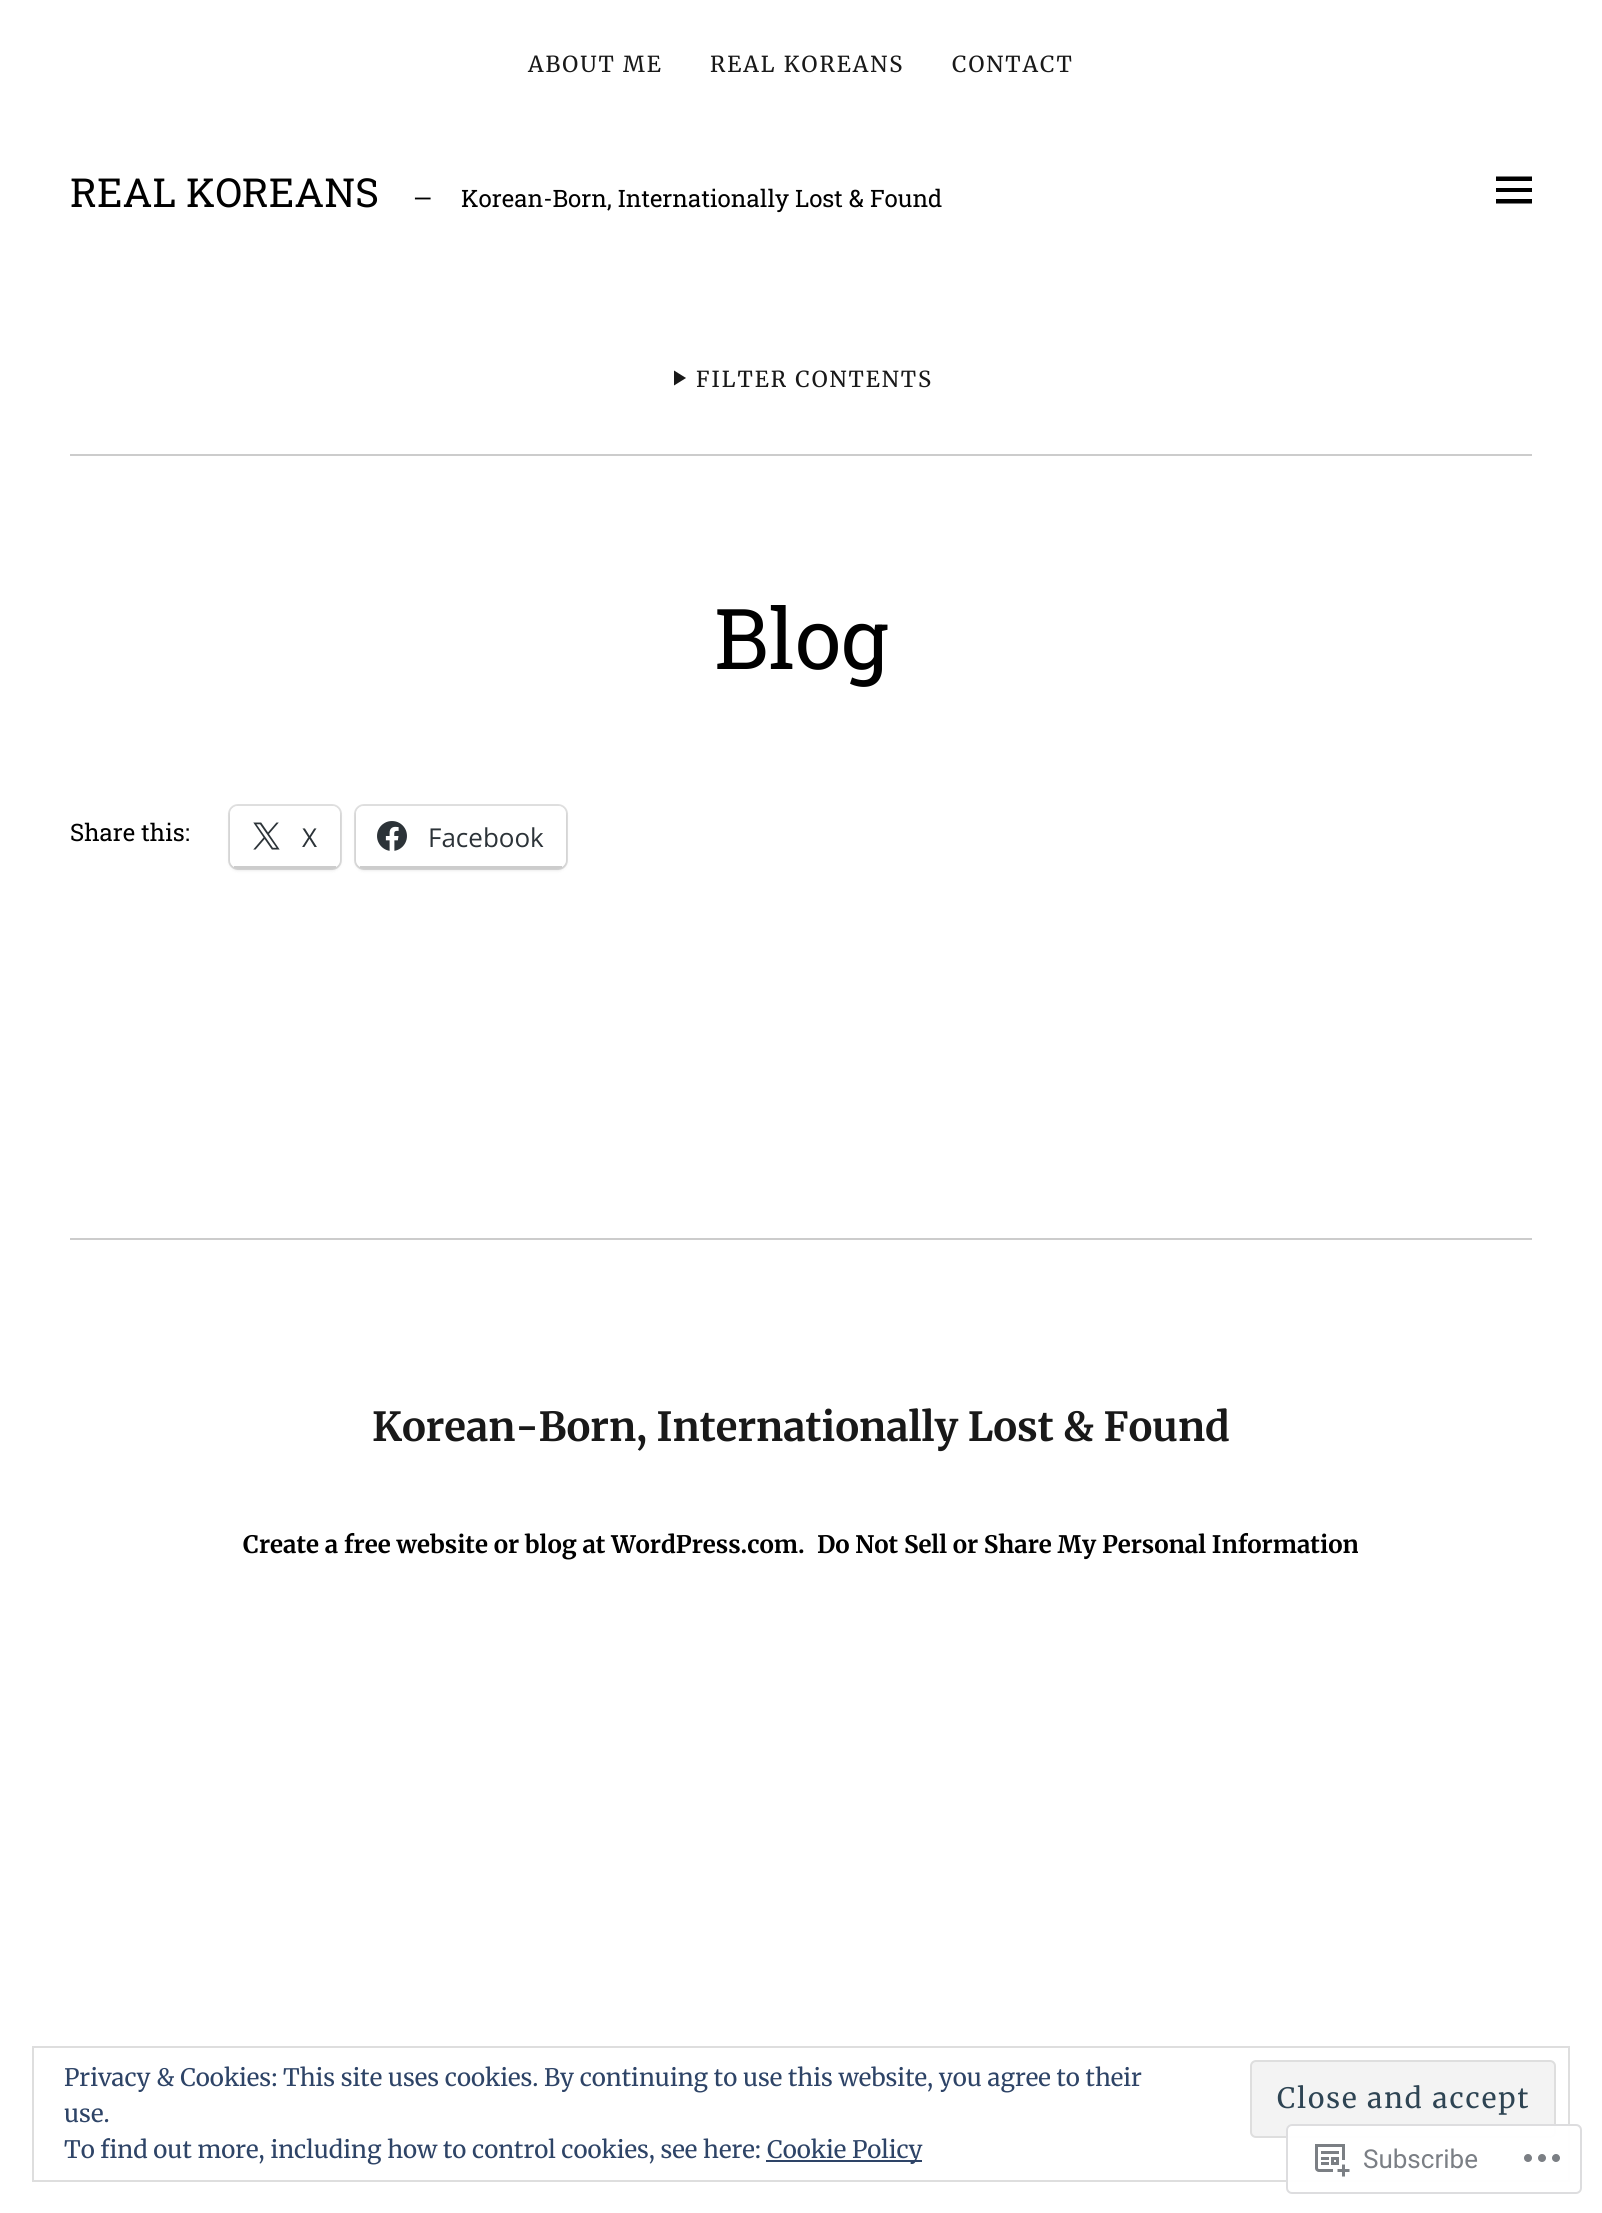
import math
import cairo

surface = cairo.ImageSurface(cairo.FORMAT_RGB24, 1602, 2213)
ctx = cairo.Context(surface)
options = cairo.FontOptions()
options.set_hint_metrics(cairo.HINT_METRICS_OFF)
options.set_hint_style(cairo.HINT_STYLE_NONE)
ctx.set_font_options(options)
ctx.set_miter_limit(4)


def set_color(code):
    ctx.set_source_rgb(*(v / 255 for v in bytes.fromhex(code[-6:])))


def draw_text(x, y, s, family, size, color, bold=False, italic=False):
    ctx.select_font_face(family, cairo.FONT_SLANT_ITALIC if italic else cairo.FONT_SLANT_NORMAL, cairo.FONT_WEIGHT_BOLD if bold else cairo.FONT_WEIGHT_NORMAL)
    ctx.set_font_size(size)
    set_color(color)
    ctx.move_to(x, y)
    ctx.show_text(s)


def draw_spaced(x, y, s, letter, word):
    ctx.move_to(x, y)
    for ch in s:
        ctx.show_text(ch)
        ctx.rel_move_to(letter + word * (ch == ' '), 0)


def fill_rect(x, y, w, h, color):
    set_color(color)
    ctx.rectangle(x, y, w, h)
    ctx.fill()


def rounded_rect(x, y, w, h, r):
    ctx.new_sub_path()
    for i, (u, v) in enumerate([(x + w - r, y + h - r), (x + r, y + h - r), (x + r, y + r), (x + w - r, y + r)]):
        ctx.arc(u, v, r, i * math.pi / 2, (i + 1) * math.pi / 2)
    ctx.close_path()


def draw_shadow(x, y, w, h, r, blur, alpha):
    ctx.push_group_with_content(cairo.CONTENT_ALPHA)
    ctx.set_operator(cairo.OPERATOR_SOURCE)
    for i in range(15, -16, -2):
        e = blur * i / 6
        if min(w, h) + 2 * e > 0:
            ctx.set_source_rgba(0, 0, 0, alpha * math.erfc((i - 1) / 8.5) / 2)
            rounded_rect(x - e, y - e, w + 2 * e, h + 2 * e, max(0, min(r + e + blur * .6, min(w, h) / 2 + e)))
            ctx.fill()
    ctx.mask(ctx.pop_group())


def draw_image(path, x, y, w, h):
    ctx.save()
    ctx.set_source_surface(cairo.ImageSurface.create_from_png(path), x, y)
    ctx.rectangle(x, y, w, h)
    ctx.fill()
    ctx.restore()


set_color("#ffffff")
ctx.paint()
ctx.select_font_face("Merriweather")
ctx.set_font_size(22)
set_color("#191919")
draw_spaced(528, 72, "ABOUT ME", 2, 0)
draw_spaced(710, 72, "REAL KOREANS", 2, 0)
draw_spaced(952, 72, "CONTACT", 2, 0)
draw_text(70, 207, "REAL KOREANS", "Roboto Slab", 40, "#000000")
draw_text(413, 207, "—", "Roboto Slab", 24, "#000000")
draw_text(461, 207, "Korean-Born, Internationally Lost & Found", "Roboto Slab", 24, "#000000")
ctx.new_path()
ctx.move_to(1496, 203.5)
ctx.line_to(1496, 199)
ctx.line_to(1532, 199)
ctx.line_to(1532, 203.5)
ctx.close_path()
ctx.move_to(1496, 176.5)
ctx.line_to(1532, 176.5)
ctx.line_to(1532, 181)
ctx.line_to(1496, 181)
ctx.close_path()
ctx.move_to(1496, 192)
ctx.line_to(1496, 188)
ctx.line_to(1532, 188)
ctx.line_to(1532, 192)
ctx.close_path()
ctx.fill()
set_color("#191919")
ctx.new_path()
ctx.move_to(674, 370.5)
ctx.line_to(686, 378)
ctx.line_to(674, 385.5)
ctx.close_path()
ctx.fill()
ctx.select_font_face("Merriweather")
ctx.set_font_size(22)
draw_spaced(696, 387, "FILTER CONTENTS", 2, 0)
fill_rect(70, 454, 1462, 2, "#cccccc")
draw_text(714, 669, "Blog", "Roboto Slab", 84, "#000000")
draw_text(70, 841, "Share this:", "Roboto Slab", 24, "#000000")
rounded_rect(229, 805, 112, 64, 9)
set_color("#e0e0e0")
ctx.stroke()
set_color("#000000")
draw_shadow(230, 808, 110, 62, 8, 2, 0.12)
set_color("#ffffff")
rounded_rect(230, 806, 110, 62, 8)
ctx.fill()
fill_rect(234, 866, 102, 2, "#cccccc")
draw_image("assets/img1.png", 253, 822, 27, 28)
draw_text(302, 847, "X", "Open Sans", 26, "#2c3338")
rounded_rect(355, 805, 212, 64, 9)
set_color("#e0e0e0")
ctx.stroke()
set_color("#000000")
draw_shadow(356, 808, 210, 62, 8, 2, 0.12)
set_color("#ffffff")
rounded_rect(356, 806, 210, 62, 8)
ctx.fill()
fill_rect(360, 866, 202, 2, "#cccccc")
draw_image("assets/img2.png", 377, 821, 30, 30)
draw_text(428, 847, "Facebook", "Open Sans", 26, "#2c3338")
fill_rect(70, 1238, 1462, 2, "#cccccc")
draw_text(372, 1441, "Korean-Born, Internationally Lost & Found", "Merriweather", 40, "#191919", bold=True)
draw_text(243, 1553, "Create a free website or blog at WordPress.com.", "Merriweather", 24, "#000000", bold=True)
draw_text(817, 1553, "Do Not Sell or Share My Personal Information", "Merriweather", 24, "#000000", bold=True)
ctx.rectangle(33, 2047, 1536, 134)
set_color("#dedede")
ctx.stroke()
draw_text(64, 2086, "Privacy & Cookies: This site uses cookies. By continuing to use this website, you agree to their", "Merriweather", 24, "#2e4467")
draw_text(64, 2122, "use.", "Merriweather", 24, "#2e4467")
set_color("#f3f3f3")
rounded_rect(1251, 2061, 304, 76, 5)
ctx.fill_preserve()
set_color("#dedede")
ctx.stroke()
ctx.set_font_size(28)
set_color("#2e4453")
draw_spaced(1277, 2108, "Close and accept", 2, 0)
draw_text(64, 2158, "To find out more, including how to control cookies, see here:", "Merriweather", 24, "#2e4467")
fill_rect(766, 2160, 156, 2, "#2e4467")
draw_text(767, 2158, "Cookie Policy", "Merriweather", 24, "#2e4467")
ctx.set_source_rgba(1, 1, 1, 0.98)
rounded_rect(1286, 2124, 296, 70, 6)
ctx.fill()
rounded_rect(1287, 2125, 294, 68, 5)
ctx.set_source_rgba(0.863, 0.863, 0.871, 0.98)
ctx.stroke()
draw_image("assets/img3.png", 1315, 2144, 35, 33)
draw_text(1363, 2168, "Subscribe", "Roboto", 26, "#7b7f85")
draw_image("assets/img4.png", 1524, 2154, 36, 8)
surface.write_to_png("output.png")
